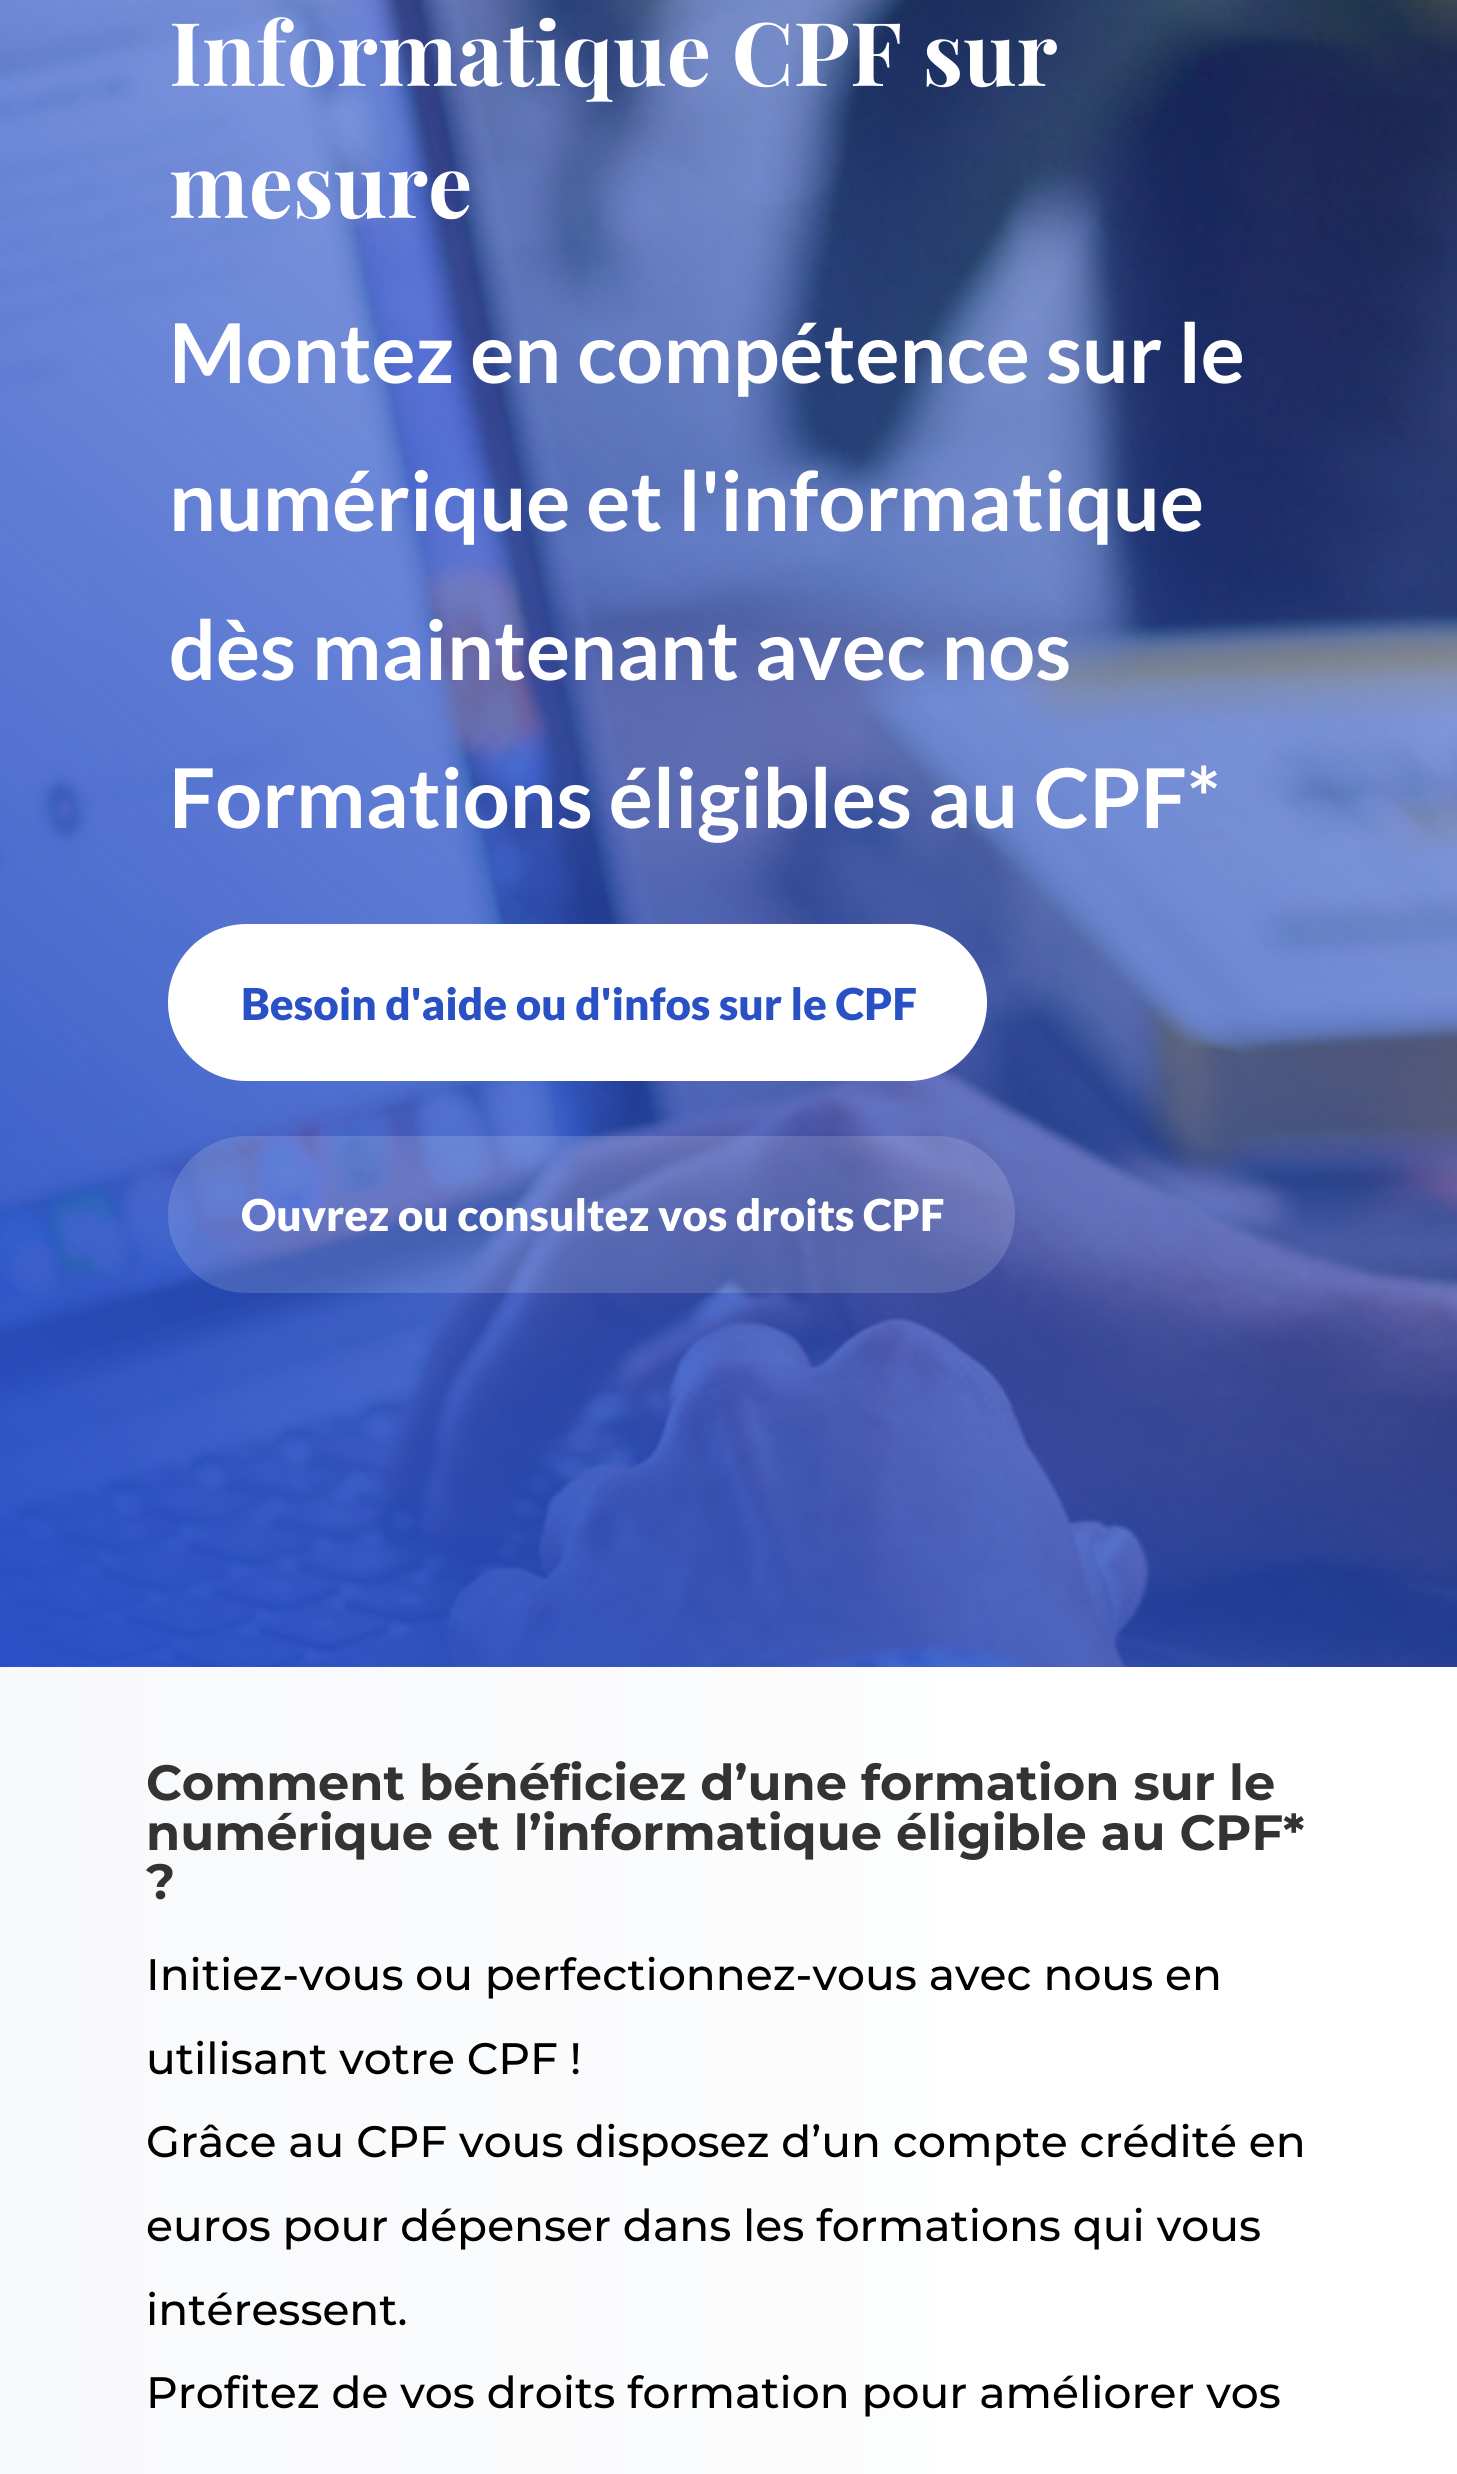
import math
import cairo

surface = cairo.ImageSurface(cairo.FORMAT_RGB24, 1457, 2474)
ctx = cairo.Context(surface)
options = cairo.FontOptions()
options.set_hint_metrics(cairo.HINT_METRICS_OFF)
options.set_hint_style(cairo.HINT_STYLE_NONE)
ctx.set_font_options(options)
ctx.set_miter_limit(4)


def set_color(code):
    ctx.set_source_rgb(*(v / 255 for v in bytes.fromhex(code[-6:])))


def draw_text(x, y, s, family, size, color, bold=False, italic=False):
    ctx.select_font_face(family, cairo.FONT_SLANT_ITALIC if italic else cairo.FONT_SLANT_NORMAL, cairo.FONT_WEIGHT_BOLD if bold else cairo.FONT_WEIGHT_NORMAL)
    ctx.set_font_size(size)
    set_color(color)
    ctx.move_to(x, y)
    ctx.show_text(s)


def rounded_rect(x, y, w, h, r):
    ctx.new_sub_path()
    for i, (u, v) in enumerate([(x + w - r, y + h - r), (x + r, y + h - r), (x + r, y + r), (x + w - r, y + r)]):
        ctx.arc(u, v, r, i * math.pi / 2, (i + 1) * math.pi / 2)
    ctx.close_path()


def draw_image(path, x, y, w, h):
    ctx.save()
    ctx.set_source_surface(cairo.ImageSurface.create_from_png(path), x, y)
    ctx.rectangle(x, y, w, h)
    ctx.fill()
    ctx.restore()


set_color("#ffffff")
ctx.paint()
draw_image("assets/img1.png", 0, 0, 1457, 1667)
draw_text(169, 86, "Informatique CPF sur", "Playfair Display", 88, "#ffffff", bold=True)
draw_text(169, 218, "mesure", "Playfair Display", 88, "#ffffff", bold=True)
draw_text(169, 383, "Montez en compétence sur le", "Lato", 82.5, "#ffffff", bold=True)
draw_text(169, 531, "numérique et l'informatique", "Lato", 82.5, "#ffffff", bold=True)
draw_text(169, 680, "dès maintenant avec nos", "Lato", 82.5, "#ffffff", bold=True)
draw_text(169, 828, "Formations éligibles au CPF*", "Lato", 82.5, "#ffffff", bold=True)
rounded_rect(168, 924, 819, 157, 78.5)
ctx.fill()
draw_text(241, 1020, "Besoin d'aide ou d'infos sur le CPF", "Lato Black", 44, "#2950c5")
ctx.set_source_rgba(1, 1, 1, 0.15)
rounded_rect(168, 1136, 847, 157, 78.5)
ctx.fill()
draw_text(241, 1231, "Ouvrez ou consultez vos droits CPF", "Lato Black", 44, "#ffffff")
gradient = cairo.LinearGradient(0, 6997, 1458, 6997)
gradient.add_color_stop_rgba(0, 0.973, 0.976, 0.984, 1)
gradient.add_color_stop_rgba(1, 1, 1, 1, 1)
ctx.set_source(gradient)
ctx.rectangle(0, 1667, 937, 807)
ctx.fill()
draw_text(146, 1800, "Comment bénéficiez d’une formation sur le", "Montserrat Thin", 49.5, "#333333")
draw_text(146, 1850, "numérique et l’informatique éligible au CPF*", "Montserrat Thin", 49.5, "#333333")
draw_text(146, 1899, "?", "Montserrat Thin", 49.5, "#333333")
draw_text(146, 1990, "Initiez-vous ou perfectionnez-vous avec nous en", "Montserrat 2 Thin", 44, "#000000")
draw_text(146, 2074, "utilisant votre CPF !", "Montserrat 2 Thin", 44, "#000000")
draw_text(146, 2157, "Grâce au CPF vous disposez d’un compte crédité en", "Montserrat 2 Thin", 44, "#000000")
draw_text(146, 2241, "euros pour dépenser dans les formations qui vous", "Montserrat 2 Thin", 44, "#000000")
draw_text(146, 2325, "intéressent.", "Montserrat 2 Thin", 44, "#000000")
draw_text(146, 2408, "Profitez de vos droits formation pour améliorer vos", "Montserrat 2 Thin", 44, "#000000")
surface.write_to_png("output.png")
